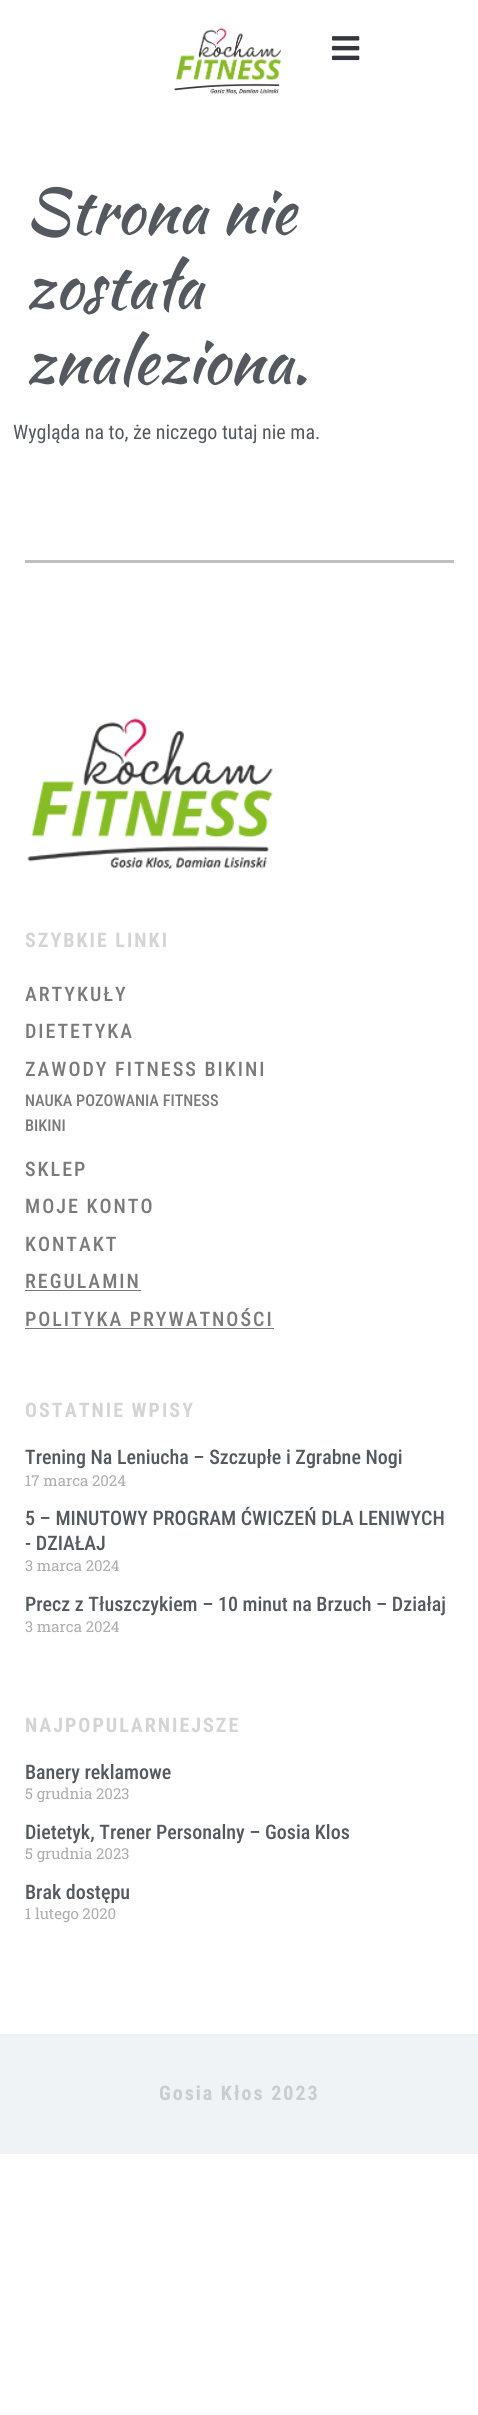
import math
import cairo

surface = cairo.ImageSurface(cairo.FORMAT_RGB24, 478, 2415)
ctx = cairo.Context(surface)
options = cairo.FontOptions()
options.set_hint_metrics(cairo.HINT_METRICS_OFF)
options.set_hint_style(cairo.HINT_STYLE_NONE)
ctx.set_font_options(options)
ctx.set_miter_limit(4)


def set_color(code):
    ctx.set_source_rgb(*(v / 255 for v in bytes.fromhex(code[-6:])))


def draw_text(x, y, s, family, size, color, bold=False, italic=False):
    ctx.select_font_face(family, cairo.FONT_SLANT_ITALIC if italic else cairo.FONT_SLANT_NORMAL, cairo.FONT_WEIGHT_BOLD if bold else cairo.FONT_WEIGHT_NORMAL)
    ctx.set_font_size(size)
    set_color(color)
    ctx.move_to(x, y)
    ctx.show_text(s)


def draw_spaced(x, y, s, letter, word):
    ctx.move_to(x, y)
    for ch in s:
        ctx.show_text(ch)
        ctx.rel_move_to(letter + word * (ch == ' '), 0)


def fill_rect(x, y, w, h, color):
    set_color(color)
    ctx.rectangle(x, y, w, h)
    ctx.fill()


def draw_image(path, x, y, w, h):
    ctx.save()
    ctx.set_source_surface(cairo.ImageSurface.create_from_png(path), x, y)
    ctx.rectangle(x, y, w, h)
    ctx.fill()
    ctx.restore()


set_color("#ffffff")
ctx.paint()
draw_image("assets/img1.png", 174, 27, 108, 67)
draw_image("assets/img2.png", 331, 36, 29, 25)
draw_text(25, 233, "Strona nie", "Kaushan Script", 62.5, "#54595f")
draw_text(25, 308, "została", "Kaushan Script", 62.5, "#54595f")
draw_text(25, 383, "znaleziona.", "Kaushan Script", 62.5, "#54595f")
draw_text(13, 439, "Wygląda na to, że niczego tutaj nie ma.", "Roboto Condensed", 20, "#54595f")
fill_rect(25, 560, 429, 3, "#c0c0c0")
draw_image("assets/img3.png", 27, 718, 246, 151)
ctx.select_font_face("Roboto Condensed", cairo.FONT_SLANT_NORMAL, cairo.FONT_WEIGHT_BOLD)
set_color("#d4d4d4")
draw_spaced(25, 947, "SZYBKIE LINKI", 2, 0)
ctx.select_font_face("Roboto Condensed Medium")
set_color("#7a7a7a")
draw_spaced(25, 1001, "ARTYKUŁY", 2, 0)
draw_spaced(25, 1038, "DIETETYKA", 2, 0)
draw_spaced(25, 1076, "ZAWODY FITNESS BIKINI", 2, 0)
draw_text(25, 1106, "NAUKA POZOWANIA FITNESS", "Roboto Condensed Medium", 16.25, "#7a7a7a")
draw_text(25, 1131, "BIKINI", "Roboto Condensed Medium", 16.25, "#7a7a7a")
ctx.set_font_size(20)
draw_spaced(25, 1176, "SKLEP", 2, 0)
draw_spaced(25, 1213, "MOJE KONTO", 2, 0)
draw_spaced(25, 1251, "KONTAKT", 2, 0)
draw_spaced(25, 1288, "REGULAMIN", 2, 0)
fill_rect(25, 1290, 116, 1, "#7a7a7a")
draw_spaced(25, 1326, "POLITYKA PRYWATNOŚCI", 2, 0)
fill_rect(25, 1328, 249, 1, "#7a7a7a")
ctx.select_font_face("Roboto Condensed", cairo.FONT_SLANT_NORMAL, cairo.FONT_WEIGHT_BOLD)
set_color("#d4d4d4")
draw_spaced(25, 1417, "OSTATNIE WPISY", 2, 0)
draw_text(25, 1464, "Trening Na Leniucha – Szczupłe i Zgrabne Nogi", "Roboto Condensed Medium", 20, "#54595f")
draw_text(25, 1486, "17 marca 2024", "Roboto Slab", 15, "#adadad")
draw_text(25, 1525, "5 – MINUTOWY PROGRAM ĆWICZEŃ DLA LENIWYCH", "Roboto Condensed Medium", 20, "#54595f")
draw_text(25, 1550, "- DZIAŁAJ", "Roboto Condensed Medium", 20, "#54595f")
draw_text(25, 1571, "3 marca 2024", "Roboto Slab", 15, "#adadad")
draw_text(25, 1611, "Precz z Tłuszczykiem – 10 minut na Brzuch – Działaj", "Roboto Condensed Medium", 20, "#54595f")
draw_text(25, 1632, "3 marca 2024", "Roboto Slab", 15, "#adadad")
ctx.select_font_face("Roboto Condensed", cairo.FONT_SLANT_NORMAL, cairo.FONT_WEIGHT_BOLD)
ctx.set_font_size(20)
set_color("#d4d4d4")
draw_spaced(25, 1732, "NAJPOPULARNIEJSZE", 2, 0)
draw_text(25, 1779, "Banery reklamowe", "Roboto Condensed Medium", 20, "#54595f")
draw_text(25, 1799, "5 grudnia 2023", "Roboto Slab", 15, "#adadad")
draw_text(25, 1839, "Dietetyk, Trener Personalny – Gosia Klos", "Roboto Condensed Medium", 20, "#54595f")
draw_text(25, 1859, "5 grudnia 2023", "Roboto Slab", 15, "#adadad")
draw_text(25, 1899, "Brak dostępu", "Roboto Condensed Medium", 20, "#54595f")
draw_text(25, 1919, "1 lutego 2020", "Roboto Slab", 15, "#adadad")
fill_rect(0, 2034, 478, 120, "#eff3f6")
ctx.select_font_face("Roboto Condensed", cairo.FONT_SLANT_NORMAL, cairo.FONT_WEIGHT_BOLD)
ctx.set_font_size(20)
set_color("#caccce")
draw_spaced(159, 2100, "Gosia Kłos 2023", 2, 0)
surface.write_to_png("output.png")
